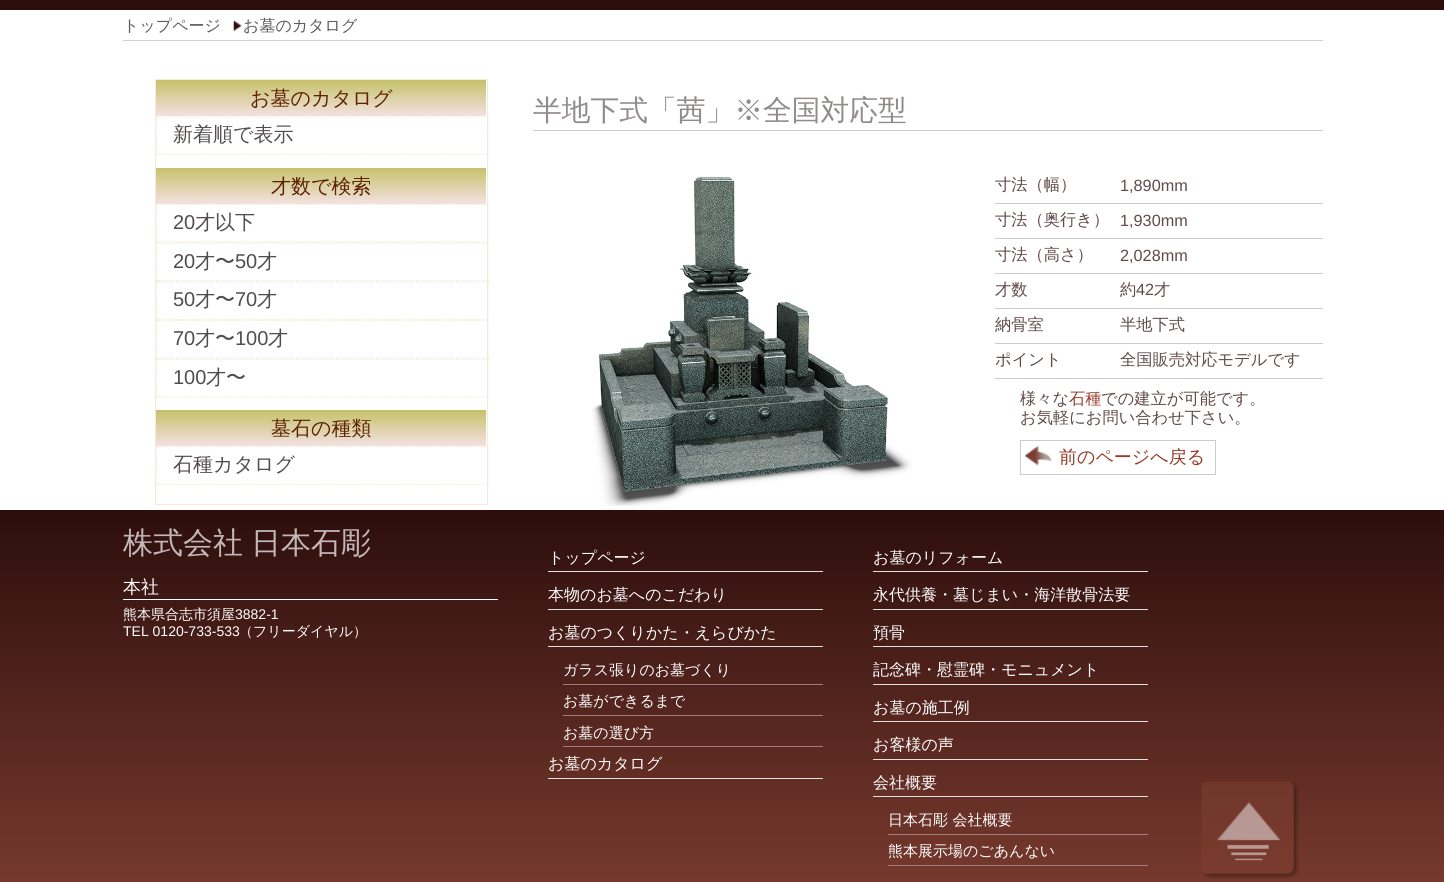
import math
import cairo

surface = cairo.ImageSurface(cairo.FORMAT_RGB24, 1444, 882)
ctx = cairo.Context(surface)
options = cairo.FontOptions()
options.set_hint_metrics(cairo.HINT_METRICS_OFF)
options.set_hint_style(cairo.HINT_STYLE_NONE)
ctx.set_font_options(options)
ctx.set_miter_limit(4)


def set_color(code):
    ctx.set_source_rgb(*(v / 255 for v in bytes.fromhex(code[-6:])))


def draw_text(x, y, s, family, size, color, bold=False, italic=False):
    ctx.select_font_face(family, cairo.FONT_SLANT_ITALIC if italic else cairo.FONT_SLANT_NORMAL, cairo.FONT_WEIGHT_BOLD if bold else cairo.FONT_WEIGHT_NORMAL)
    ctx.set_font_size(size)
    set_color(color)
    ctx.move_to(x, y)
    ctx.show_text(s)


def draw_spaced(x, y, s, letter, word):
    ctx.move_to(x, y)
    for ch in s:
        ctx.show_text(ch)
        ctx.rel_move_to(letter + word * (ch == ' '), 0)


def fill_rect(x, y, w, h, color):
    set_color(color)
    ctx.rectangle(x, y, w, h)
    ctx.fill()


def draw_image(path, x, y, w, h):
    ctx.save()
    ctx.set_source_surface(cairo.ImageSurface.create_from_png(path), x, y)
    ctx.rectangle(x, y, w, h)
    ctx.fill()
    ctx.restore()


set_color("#ffffff")
ctx.paint()
fill_rect(0, 0, 1444, 10, "#2d0e0c")
fill_rect(123, 40, 1200, 1, "#d6cdce")
draw_text(123, 31, "トップページ", "WenQuanYi Zen Hei Medium", 16, "#5a5a5a")
draw_image("assets/img1.png", 233, 20, 9, 11)
draw_text(243, 31, "お墓のカタログ", "WenQuanYi Zen Hei Medium", 16, "#5a5a5a")
ctx.rectangle(155.5, 79.5, 332, 425)
set_color("#f2ebd8")
ctx.set_line_width(1)
ctx.stroke()
gradient = cairo.LinearGradient(321, 80, 321, 116)
gradient.add_color_stop_rgba(0, 0.776, 0.757, 0.416, 1)
gradient.add_color_stop_rgba(1, 0.953, 0.882, 0.882, 1)
ctx.set_source(gradient)
ctx.rectangle(156, 80, 330, 36)
ctx.fill()
draw_text(250, 105, "お墓のカタログ", "WenQuanYi Zen Hei Medium", 20, "#5c2201")
ctx.new_path()
ctx.move_to(156, 117)
ctx.line_to(489, 117)
set_color("#f2ebd8")
ctx.set_line_width(1.2)
ctx.set_dash([1.25, 1.25])
ctx.stroke()
ctx.new_path()
ctx.move_to(488, 116)
ctx.line_to(488, 155)
ctx.stroke()
ctx.new_path()
ctx.move_to(156, 154.5)
ctx.line_to(489, 154.5)
ctx.stroke()
ctx.new_path()
ctx.move_to(157, 116)
ctx.line_to(157, 155)
ctx.stroke()
draw_text(173, 141, "新着順で表示", "WenQuanYi Zen Hei Medium", 20, "#524c4c")
gradient = cairo.LinearGradient(321, 167, 321, 204)
gradient.add_color_stop_rgba(0, 0.776, 0.757, 0.416, 1)
gradient.add_color_stop_rgba(1, 0.953, 0.882, 0.882, 1)
ctx.set_source(gradient)
ctx.rectangle(156, 168, 330, 36)
ctx.fill()
draw_text(271, 193, "才数で検索", "WenQuanYi Zen Hei Medium", 20, "#5c2201")
ctx.new_path()
ctx.move_to(156, 204.5)
ctx.line_to(489, 204.5)
set_color("#f2ebd8")
ctx.stroke()
ctx.new_path()
ctx.move_to(488, 204)
ctx.line_to(488, 242.5)
ctx.stroke()
ctx.new_path()
ctx.move_to(156, 242)
ctx.line_to(489, 242)
ctx.stroke()
ctx.new_path()
ctx.move_to(157, 204)
ctx.line_to(157, 242.5)
ctx.stroke()
draw_text(173, 229, "20", "Liberation Sans", 20, "#524c4c")
draw_text(195, 229, "才以下", "WenQuanYi Zen Hei Medium", 20, "#524c4c")
ctx.new_path()
ctx.move_to(156, 243)
ctx.line_to(489, 243)
set_color("#f2ebd8")
ctx.stroke()
ctx.new_path()
ctx.move_to(488, 242.5)
ctx.line_to(488, 281)
ctx.stroke()
ctx.new_path()
ctx.move_to(156, 280.5)
ctx.line_to(489, 280.5)
ctx.stroke()
ctx.new_path()
ctx.move_to(157, 242.5)
ctx.line_to(157, 281)
ctx.stroke()
draw_text(173, 268, "20", "Liberation Sans", 20, "#524c4c")
draw_text(195, 268, "才〜", "WenQuanYi Zen Hei Medium", 20, "#524c4c")
draw_text(235, 268, "50", "Liberation Sans", 20, "#524c4c")
draw_text(257, 268, "才", "WenQuanYi Zen Hei Medium", 20, "#524c4c")
ctx.new_path()
ctx.move_to(156, 282)
ctx.line_to(489, 282)
set_color("#f2ebd8")
ctx.stroke()
ctx.new_path()
ctx.move_to(488, 281)
ctx.line_to(488, 320)
ctx.stroke()
ctx.new_path()
ctx.move_to(156, 319.5)
ctx.line_to(489, 319.5)
ctx.stroke()
ctx.new_path()
ctx.move_to(157, 281)
ctx.line_to(157, 320)
ctx.stroke()
draw_text(173, 306, "50", "Liberation Sans", 20, "#524c4c")
draw_text(195, 306, "才〜", "WenQuanYi Zen Hei Medium", 20, "#524c4c")
draw_text(235, 306, "70", "Liberation Sans", 20, "#524c4c")
draw_text(257, 306, "才", "WenQuanYi Zen Hei Medium", 20, "#524c4c")
ctx.new_path()
ctx.move_to(156, 320.5)
ctx.line_to(489, 320.5)
set_color("#f2ebd8")
ctx.stroke()
ctx.new_path()
ctx.move_to(488, 320)
ctx.line_to(488, 359)
ctx.stroke()
ctx.new_path()
ctx.move_to(156, 358)
ctx.line_to(489, 358)
ctx.stroke()
ctx.new_path()
ctx.move_to(157, 320)
ctx.line_to(157, 359)
ctx.stroke()
draw_text(173, 345, "70", "Liberation Sans", 20, "#524c4c")
draw_text(195, 345, "才〜", "WenQuanYi Zen Hei Medium", 20, "#524c4c")
draw_text(235, 345, "100", "Liberation Sans", 20, "#524c4c")
draw_text(268, 345, "才", "WenQuanYi Zen Hei Medium", 20, "#524c4c")
ctx.new_path()
ctx.move_to(156, 359.5)
ctx.line_to(489, 359.5)
set_color("#f2ebd8")
ctx.stroke()
ctx.new_path()
ctx.move_to(488, 359)
ctx.line_to(488, 397.5)
ctx.stroke()
ctx.new_path()
ctx.move_to(156, 397)
ctx.line_to(489, 397)
ctx.stroke()
ctx.new_path()
ctx.move_to(157, 359)
ctx.line_to(157, 397.5)
ctx.stroke()
draw_text(173, 384, "100", "Liberation Sans", 20, "#524c4c")
draw_text(206, 384, "才〜", "WenQuanYi Zen Hei Medium", 20, "#524c4c")
gradient = cairo.LinearGradient(321, 410, 321, 446)
gradient.add_color_stop_rgba(0, 0.776, 0.757, 0.416, 1)
gradient.add_color_stop_rgba(1, 0.953, 0.882, 0.882, 1)
ctx.set_source(gradient)
ctx.rectangle(156, 410, 330, 36)
ctx.fill()
draw_text(271, 435, "墓石の種類", "WenQuanYi Zen Hei Medium", 20, "#5c2201")
ctx.new_path()
ctx.move_to(156, 447)
ctx.line_to(489, 447)
set_color("#f2ebd8")
ctx.stroke()
ctx.new_path()
ctx.move_to(488, 446)
ctx.line_to(488, 485)
ctx.stroke()
ctx.new_path()
ctx.move_to(156, 484.5)
ctx.line_to(489, 484.5)
ctx.stroke()
ctx.new_path()
ctx.move_to(157, 446)
ctx.line_to(157, 485)
ctx.stroke()
draw_text(173, 471, "石種カタログ", "WenQuanYi Zen Hei Medium", 20, "#524c4c")
fill_rect(533, 130, 790, 1, "#cccccc")
draw_text(533, 120, "半地下式「茜」※全国対応型", "WenQuanYi Zen Hei Medium", 28.75, "#928b8b")
draw_image("assets/img2.png", 592, 176, 320, 330)
draw_text(995, 190, "寸法（幅）", "WenQuanYi Zen Hei Medium", 16.25, "#604a4a")
fill_rect(995, 203, 328, 1, "#cccccc")
draw_text(1120, 191, "1,890mm", "Liberation Sans", 16.25, "#604a4a")
draw_text(995, 225, "寸法（奥行き）", "WenQuanYi Zen Hei Medium", 16.25, "#604a4a")
fill_rect(995, 238, 328, 1, "#cccccc")
draw_text(1120, 226, "1,930mm", "Liberation Sans", 16.25, "#604a4a")
draw_text(995, 260, "寸法（高さ）", "WenQuanYi Zen Hei Medium", 16.25, "#604a4a")
fill_rect(995, 273, 328, 1, "#cccccc")
draw_text(1120, 261, "2,028mm", "Liberation Sans", 16.25, "#604a4a")
draw_text(995, 295, "才数", "WenQuanYi Zen Hei Medium", 16.25, "#604a4a")
fill_rect(995, 308, 328, 1, "#cccccc")
draw_text(1120, 295, "約", "WenQuanYi Zen Hei Medium", 16.25, "#604a4a")
draw_text(1136, 295, "42", "Liberation Sans", 16.25, "#604a4a")
draw_text(1154, 295, "才", "WenQuanYi Zen Hei Medium", 16.25, "#604a4a")
draw_text(995, 330, "納骨室", "WenQuanYi Zen Hei Medium", 16.25, "#604a4a")
fill_rect(995, 343, 328, 1, "#cccccc")
draw_text(1120, 330, "半地下式", "WenQuanYi Zen Hei Medium", 16.25, "#604a4a")
draw_text(995, 365, "ポイント", "WenQuanYi Zen Hei Medium", 16.25, "#604a4a")
fill_rect(995, 378, 328, 1, "#cccccc")
draw_text(1120, 365, "全国販売対応モデルです", "WenQuanYi Zen Hei Medium", 16.25, "#604a4a")
draw_text(1020, 404, "様々な", "WenQuanYi Zen Hei Medium", 16.25, "#604a4a")
draw_text(1069, 404, "石種", "WenQuanYi Zen Hei Medium", 16.25, "#973b26")
draw_text(1101, 404, "での建立が可能です。", "WenQuanYi Zen Hei Medium", 16.25, "#604a4a")
draw_text(1020, 423, "お気軽にお問い合わせ下さい。", "WenQuanYi Zen Hei Medium", 16.25, "#604a4a")
draw_image("assets/img3.png", 1025, 445, 27, 21)
ctx.rectangle(1020.5, 440.5, 195, 34)
set_color("#cccccc")
ctx.set_line_width(1)
ctx.set_dash([])
ctx.stroke()
draw_text(1059, 463, "前のページへ戻る", "WenQuanYi Zen Hei Medium", 18, "#973b26")
gradient = cairo.LinearGradient(723, 510, 723, 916)
gradient.add_color_stop_rgba(0, 0.176, 0.055, 0.047, 1)
gradient.add_color_stop_rgba(1, 0.49, 0.239, 0.192, 1)
ctx.set_source(gradient)
ctx.rectangle(0, 510, 1444, 372)
ctx.fill()
ctx.set_font_size(30)
set_color("#c3b6b7")
draw_spaced(123, 553, "株式会社 日本石彫", 0, -1)
fill_rect(123, 599, 375, 1, "#ffffff")
draw_text(123, 593, "本社", "WenQuanYi Zen Hei Medium", 18, "#ffffff")
draw_text(123, 619, "熊本県合志市須屋", "WenQuanYi Zen Hei Medium", 14, "#ffffff")
draw_text(235, 619, "3882-1", "Liberation Sans", 14, "#ffffff")
draw_text(123, 636, "TEL 0120-733-533", "Liberation Sans", 14, "#ffffff")
draw_text(239, 636, "（フリーダイヤル）", "WenQuanYi Zen Hei Medium", 14, "#ffffff")
fill_rect(548, 571, 275, 1, "#e0e0e0")
draw_text(548, 563, "トップページ", "WenQuanYi Zen Hei Medium", 16, "#ffffff")
fill_rect(548, 609, 275, 1, "#e0e0e0")
draw_text(548, 600, "本物のお墓へのこだわり", "WenQuanYi Zen Hei Medium", 16, "#ffffff")
fill_rect(548, 646, 275, 1, "#e0e0e0")
draw_text(548, 638, "お墓のつくりかた・えらびかた", "WenQuanYi Zen Hei Medium", 16, "#ffffff")
fill_rect(563, 684, 260, 1, "#a37a7b")
draw_text(563, 675, "ガラス張りのお墓づくり", "WenQuanYi Zen Hei Medium", 15, "#ffffff")
fill_rect(563, 715, 260, 1, "#a37a7b")
draw_text(563, 706, "お墓ができるまで", "WenQuanYi Zen Hei Medium", 15, "#ffffff")
fill_rect(563, 746, 260, 1, "#a37a7b")
draw_text(563, 738, "お墓の選び方", "WenQuanYi Zen Hei Medium", 15, "#ffffff")
fill_rect(548, 778, 275, 1, "#e0e0e0")
draw_text(548, 769, "お墓のカタログ", "WenQuanYi Zen Hei Medium", 16, "#ffffff")
fill_rect(873, 571, 275, 1, "#e0e0e0")
draw_text(873, 563, "お墓のリフォーム", "WenQuanYi Zen Hei Medium", 16, "#ffffff")
fill_rect(873, 609, 275, 1, "#e0e0e0")
draw_text(873, 600, "永代供養・墓じまい・海洋散骨法要", "WenQuanYi Zen Hei Medium", 16, "#ffffff")
fill_rect(873, 646, 275, 1, "#e0e0e0")
draw_text(873, 638, "預骨", "WenQuanYi Zen Hei Medium", 16, "#ffffff")
fill_rect(873, 684, 275, 1, "#e0e0e0")
draw_text(873, 675, "記念碑・慰霊碑・モニュメント", "WenQuanYi Zen Hei Medium", 16, "#ffffff")
fill_rect(873, 721, 275, 1, "#e0e0e0")
draw_text(873, 713, "お墓の施工例", "WenQuanYi Zen Hei Medium", 16, "#ffffff")
fill_rect(873, 759, 275, 1, "#e0e0e0")
draw_text(873, 750, "お客様の声", "WenQuanYi Zen Hei Medium", 16, "#ffffff")
fill_rect(873, 796, 275, 1, "#e0e0e0")
draw_text(873, 788, "会社概要", "WenQuanYi Zen Hei Medium", 16, "#ffffff")
fill_rect(888, 834, 260, 1, "#a37a7b")
draw_text(888, 825, "日本石彫 会社概要", "WenQuanYi Zen Hei Medium", 15, "#ffffff")
fill_rect(888, 865, 260, 1, "#a37a7b")
draw_text(888, 856, "熊本展示場のごあんない", "WenQuanYi Zen Hei Medium", 15, "#ffffff")
draw_image("assets/img4.png", 1201, 781, 98, 98)
surface.write_to_png("output.png")
